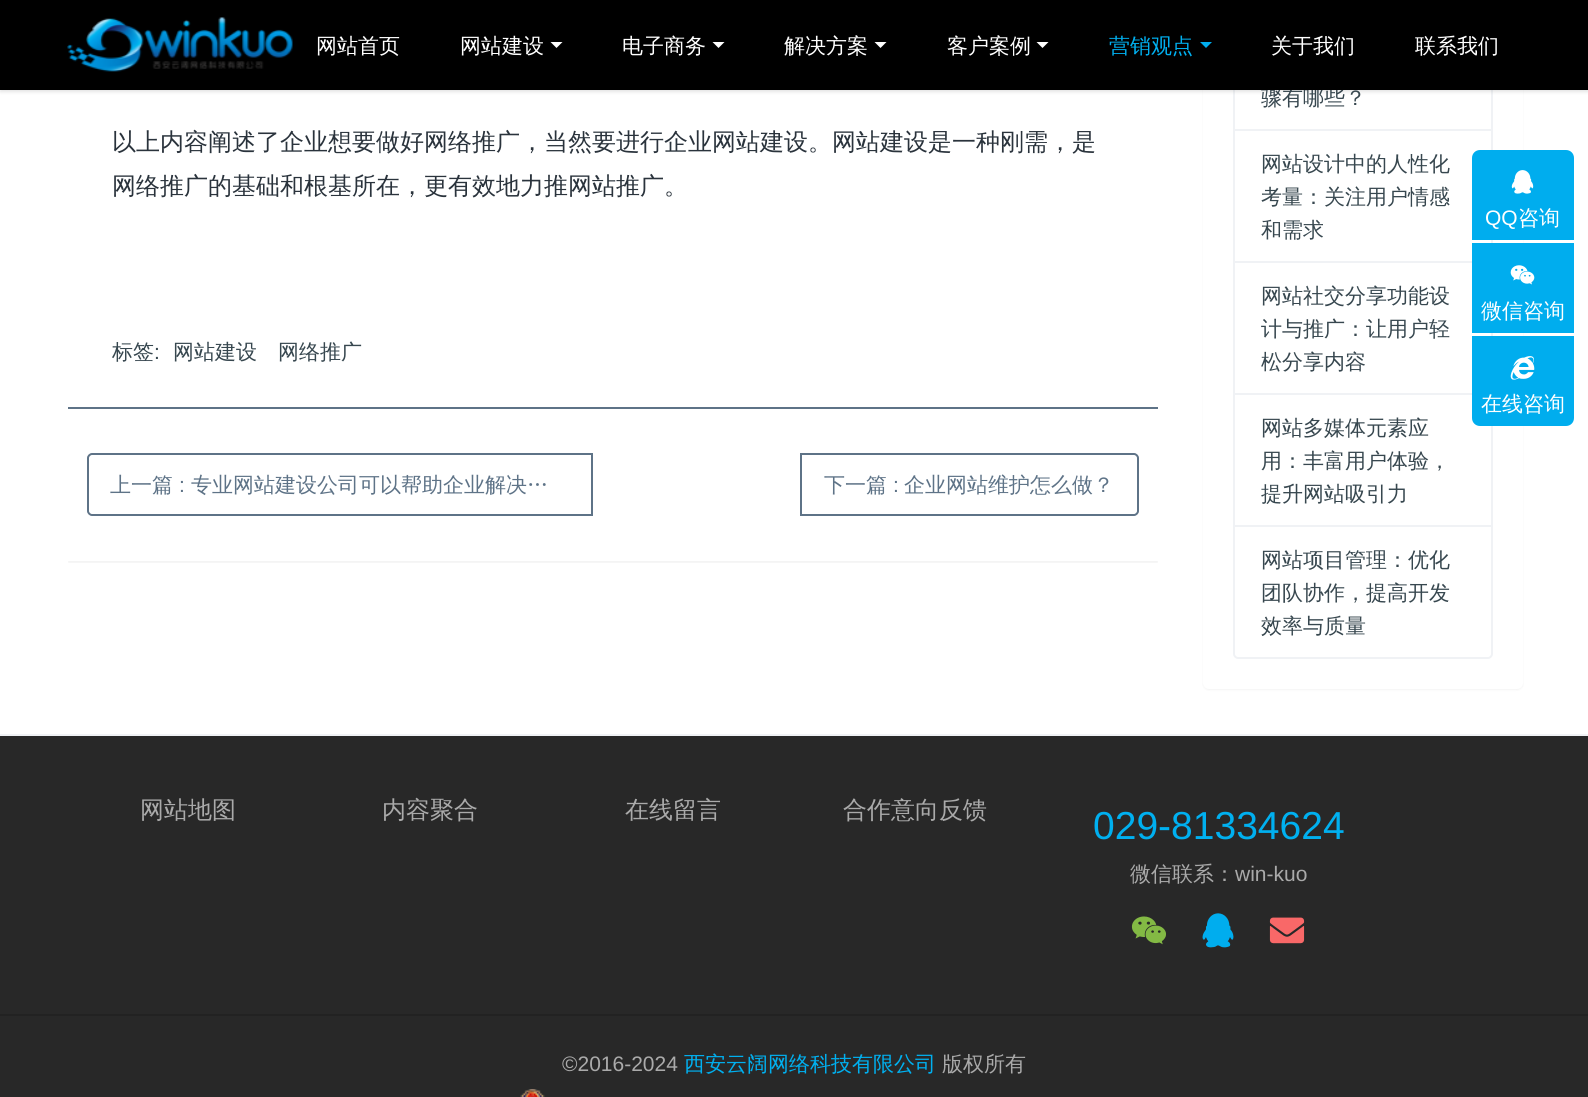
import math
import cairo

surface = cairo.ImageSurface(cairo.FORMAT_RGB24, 1588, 1097)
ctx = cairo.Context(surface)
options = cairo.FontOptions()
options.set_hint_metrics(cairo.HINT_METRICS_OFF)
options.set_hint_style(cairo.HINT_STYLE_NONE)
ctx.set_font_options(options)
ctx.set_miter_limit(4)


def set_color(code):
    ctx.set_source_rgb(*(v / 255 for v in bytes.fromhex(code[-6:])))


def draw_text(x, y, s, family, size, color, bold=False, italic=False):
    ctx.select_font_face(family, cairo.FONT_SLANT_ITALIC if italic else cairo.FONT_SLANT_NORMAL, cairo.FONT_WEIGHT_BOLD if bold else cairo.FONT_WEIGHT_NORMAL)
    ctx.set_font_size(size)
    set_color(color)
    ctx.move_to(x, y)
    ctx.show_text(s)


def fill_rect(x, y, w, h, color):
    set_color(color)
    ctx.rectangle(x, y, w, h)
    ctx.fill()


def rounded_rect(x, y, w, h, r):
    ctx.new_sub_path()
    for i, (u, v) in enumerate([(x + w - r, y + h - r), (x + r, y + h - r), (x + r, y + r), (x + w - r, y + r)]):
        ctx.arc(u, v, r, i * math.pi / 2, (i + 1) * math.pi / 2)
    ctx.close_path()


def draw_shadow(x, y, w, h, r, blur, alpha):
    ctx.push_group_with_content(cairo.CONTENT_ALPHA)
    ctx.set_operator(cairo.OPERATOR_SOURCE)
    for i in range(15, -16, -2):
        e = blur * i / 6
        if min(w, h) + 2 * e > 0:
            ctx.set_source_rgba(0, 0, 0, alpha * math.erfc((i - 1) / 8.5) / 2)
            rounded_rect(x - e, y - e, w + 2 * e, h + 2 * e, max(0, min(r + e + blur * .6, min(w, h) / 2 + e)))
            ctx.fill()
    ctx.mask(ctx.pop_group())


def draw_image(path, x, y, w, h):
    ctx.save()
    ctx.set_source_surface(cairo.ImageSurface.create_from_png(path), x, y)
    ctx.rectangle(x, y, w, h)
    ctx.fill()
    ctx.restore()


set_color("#ffffff")
ctx.paint()
set_color("#000000")
draw_shadow(1203, -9, 320, 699, 6, 1, 0.05)
set_color("#ffffff")
rounded_rect(1203, -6, 320, 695, 6)
ctx.fill()
ctx.rectangle(1234, -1, 258, 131)
set_color("#f0f2f5")
ctx.stroke()
set_color("#000000")
draw_shadow(0, 2, 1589, 90, 0, 1.5, 0.1)
ctx.save()
ctx.rectangle(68, 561, 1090, 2)
ctx.clip()
draw_shadow(68, -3, 1090, 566, 0, 1, 0.05)
ctx.restore()
draw_text(1261, 105, "骤有哪些？", "WenQuanYi Zen Hei Medium", 21, "#37474f")
fill_rect(0, 0, 1588, 90, "#000000")
draw_image("assets/img1.png", 67, 17, 226, 55)
draw_text(316, 53, "网站首页", "WenQuanYi Zen Hei Medium", 21, "#ffffff")
draw_text(460, 53, "网站建设", "WenQuanYi Zen Hei Medium", 21, "#ffffff")
ctx.new_path()
ctx.move_to(550.5, 42)
ctx.line_to(562.5, 42)
ctx.line_to(556.5, 48)
ctx.close_path()
ctx.fill()
draw_text(622, 53, "电子商务", "WenQuanYi Zen Hei Medium", 21, "#ffffff")
ctx.new_path()
ctx.move_to(712.5, 42)
ctx.line_to(724.5, 42)
ctx.line_to(718.5, 48)
ctx.close_path()
ctx.fill()
draw_text(784, 53, "解决方案", "WenQuanYi Zen Hei Medium", 21, "#ffffff")
ctx.new_path()
ctx.move_to(874.5, 42)
ctx.line_to(886.5, 42)
ctx.line_to(880.5, 48)
ctx.close_path()
ctx.fill()
draw_text(947, 53, "客户案例", "WenQuanYi Zen Hei Medium", 21, "#ffffff")
ctx.new_path()
ctx.move_to(1036.5, 42)
ctx.line_to(1048.5, 42)
ctx.line_to(1042.5, 48)
ctx.close_path()
ctx.fill()
draw_text(1109, 53, "营销观点", "WenQuanYi Zen Hei Medium", 21, "#00b0f0")
set_color("#00adee")
ctx.new_path()
ctx.move_to(1200, 42)
ctx.line_to(1212, 42)
ctx.line_to(1206, 48)
ctx.close_path()
ctx.fill()
draw_text(1271, 53, "关于我们", "WenQuanYi Zen Hei Medium", 21, "#ffffff")
draw_text(1415, 53, "联系我们", "WenQuanYi Zen Hei Medium", 21, "#ffffff")
draw_text(112, 150, "以上内容阐述了企业想要做好网络推广，当然要进行企业网站建设。网站建设是一种刚需，是", "WenQuanYi Zen Hei Medium", 24, "#2a333c")
draw_text(112, 194, "网络推广的基础和根基所在，更有效地力推网站推广。", "WenQuanYi Zen Hei Medium", 24, "#2a333c")
draw_text(112, 359, "标签", "WenQuanYi Zen Hei Medium", 21, "#37474f")
draw_text(154, 359, ":", "Liberation Sans", 21, "#37474f")
draw_text(173, 359, "网站建设", "WenQuanYi Zen Hei Medium", 21, "#37474f")
draw_text(278, 359, "网络推广", "WenQuanYi Zen Hei Medium", 21, "#37474f")
fill_rect(68, 407, 1090, 2, "#5e7387")
ctx.new_path()
ctx.move_to(92, 454)
ctx.line_to(592, 454)
ctx.line_to(592, 515)
ctx.line_to(92, 515)
ctx.curve_to(90, 515, 88, 513, 88, 511)
ctx.line_to(88, 458)
ctx.curve_to(88, 456, 90, 454, 92, 454)
ctx.close_path()
ctx.stroke()
draw_text(110, 492, "上一篇", "WenQuanYi Zen Hei Medium", 21, "#5e7387")
draw_text(179, 492, ":", "Liberation Sans", 21, "#5e7387")
draw_text(191, 492, "专业网站建设公司可以帮助企业解决…", "WenQuanYi Zen Hei Medium", 21, "#5e7387")
ctx.new_path()
ctx.move_to(801, 454)
ctx.line_to(1134, 454)
ctx.curve_to(1136, 454, 1138, 456, 1138, 458)
ctx.line_to(1138, 511)
ctx.curve_to(1138, 513, 1136, 515, 1134, 515)
ctx.line_to(801, 515)
ctx.close_path()
ctx.stroke()
draw_text(824, 492, "下一篇", "WenQuanYi Zen Hei Medium", 21, "#5e7387")
draw_text(893, 492, ":", "Liberation Sans", 21, "#5e7387")
draw_text(904, 492, "企业网站维护怎么做？", "WenQuanYi Zen Hei Medium", 21, "#5e7387")
ctx.rectangle(1234, 130, 258, 132)
set_color("#f0f2f5")
ctx.stroke()
draw_text(1261, 171, "网站设计中的人性化", "WenQuanYi Zen Hei Medium", 21, "#37474f")
draw_text(1261, 204, "考量：关注用户情感", "WenQuanYi Zen Hei Medium", 21, "#37474f")
draw_text(1261, 237, "和需求", "WenQuanYi Zen Hei Medium", 21, "#37474f")
ctx.rectangle(1234, 262, 258, 132)
set_color("#f0f2f5")
ctx.stroke()
draw_text(1261, 303, "网站社交分享功能设", "WenQuanYi Zen Hei Medium", 21, "#37474f")
draw_text(1261, 336, "计与推广：让用户轻", "WenQuanYi Zen Hei Medium", 21, "#37474f")
draw_text(1261, 369, "松分享内容", "WenQuanYi Zen Hei Medium", 21, "#37474f")
ctx.rectangle(1234, 394, 258, 132)
set_color("#f0f2f5")
ctx.stroke()
draw_text(1261, 435, "网站多媒体元素应", "WenQuanYi Zen Hei Medium", 21, "#37474f")
draw_text(1261, 468, "用：丰富用户体验，", "WenQuanYi Zen Hei Medium", 21, "#37474f")
draw_text(1261, 501, "提升网站吸引力", "WenQuanYi Zen Hei Medium", 21, "#37474f")
set_color("#ffffff")
ctx.new_path()
ctx.move_to(1234, 526)
ctx.line_to(1492, 526)
ctx.line_to(1492, 654)
ctx.curve_to(1492, 656, 1490, 658, 1488, 658)
ctx.line_to(1238, 658)
ctx.curve_to(1236, 658, 1234, 656, 1234, 654)
ctx.close_path()
ctx.fill_preserve()
set_color("#f0f2f5")
ctx.stroke()
draw_text(1261, 567, "网站项目管理：优化", "WenQuanYi Zen Hei Medium", 21, "#37474f")
draw_text(1261, 600, "团队协作，提高开发", "WenQuanYi Zen Hei Medium", 21, "#37474f")
draw_text(1261, 633, "效率与质量", "WenQuanYi Zen Hei Medium", 21, "#37474f")
set_color("#00adee")
ctx.new_path()
ctx.move_to(1480, 150)
ctx.line_to(1566, 150)
ctx.curve_to(1570.5, 150, 1574, 153.5, 1574, 158)
ctx.line_to(1574, 240)
ctx.line_to(1472, 240)
ctx.line_to(1472, 158)
ctx.curve_to(1472, 153.5, 1475.5, 150, 1480, 150)
ctx.close_path()
ctx.fill()
draw_image("assets/img2.png", 1511, 170, 23, 24)
draw_text(1485, 225, "QQ", "Liberation Sans", 21, "#ffffff")
draw_text(1518, 225, "咨询", "WenQuanYi Zen Hei Medium", 21, "#ffffff")
fill_rect(1472, 243, 102, 90, "#00adee")
draw_image("assets/img3.png", 1510, 265, 25, 20)
draw_text(1481, 318, "微信咨询", "WenQuanYi Zen Hei Medium", 21, "#ffffff")
set_color("#00adee")
ctx.new_path()
ctx.move_to(1472, 336)
ctx.line_to(1574, 336)
ctx.line_to(1574, 418)
ctx.curve_to(1574, 422.5, 1570.5, 426, 1566, 426)
ctx.line_to(1480, 426)
ctx.curve_to(1475.5, 426, 1472, 422.5, 1472, 418)
ctx.close_path()
ctx.fill()
draw_image("assets/img4.png", 1510, 356, 25, 24)
draw_text(1481, 411, "在线咨询", "WenQuanYi Zen Hei Medium", 21, "#ffffff")
fill_rect(0, 736, 1588, 278, "#282828")
fill_rect(0, 734, 1588, 2, "#f0f2f5")
draw_text(140, 818, "网站地图", "WenQuanYi Zen Hei Medium", 24, "#aaaaaa")
draw_text(382, 818, "内容聚合", "WenQuanYi Zen Hei Medium", 24, "#aaaaaa")
draw_text(625, 818, "在线留言", "WenQuanYi Zen Hei Medium", 24, "#aaaaaa")
draw_text(843, 818, "合作意向反馈", "WenQuanYi Zen Hei Medium", 24, "#aaaaaa")
draw_text(1093, 839, "029-81334624", "Liberation Sans", 39, "#00b0f0")
draw_text(1130, 881, "微信联系：", "WenQuanYi Zen Hei Medium", 21, "#aaaaaa")
draw_text(1235, 881, "win-kuo", "Liberation Sans", 21, "#aaaaaa")
draw_image("assets/img5.png", 1131, 916, 35, 29)
draw_image("assets/img6.png", 1202, 913, 32, 35)
draw_image("assets/img7.png", 1269, 917, 36, 27)
fill_rect(0, 1016, 1588, 81, "#282828")
fill_rect(0, 1014, 1588, 2, "#222222")
draw_text(562, 1071, "©2016-2024", "Liberation Sans", 21, "#aaaaaa")
draw_text(684, 1071, "西安云阔网络科技有限公司", "WenQuanYi Zen Hei Medium", 21, "#00b0f0")
draw_text(942, 1071, "版权所有", "WenQuanYi Zen Hei Medium", 21, "#aaaaaa")
draw_image("assets/img8.png", 520, 1089, 25, 8)
surface.write_to_png("output.png")
